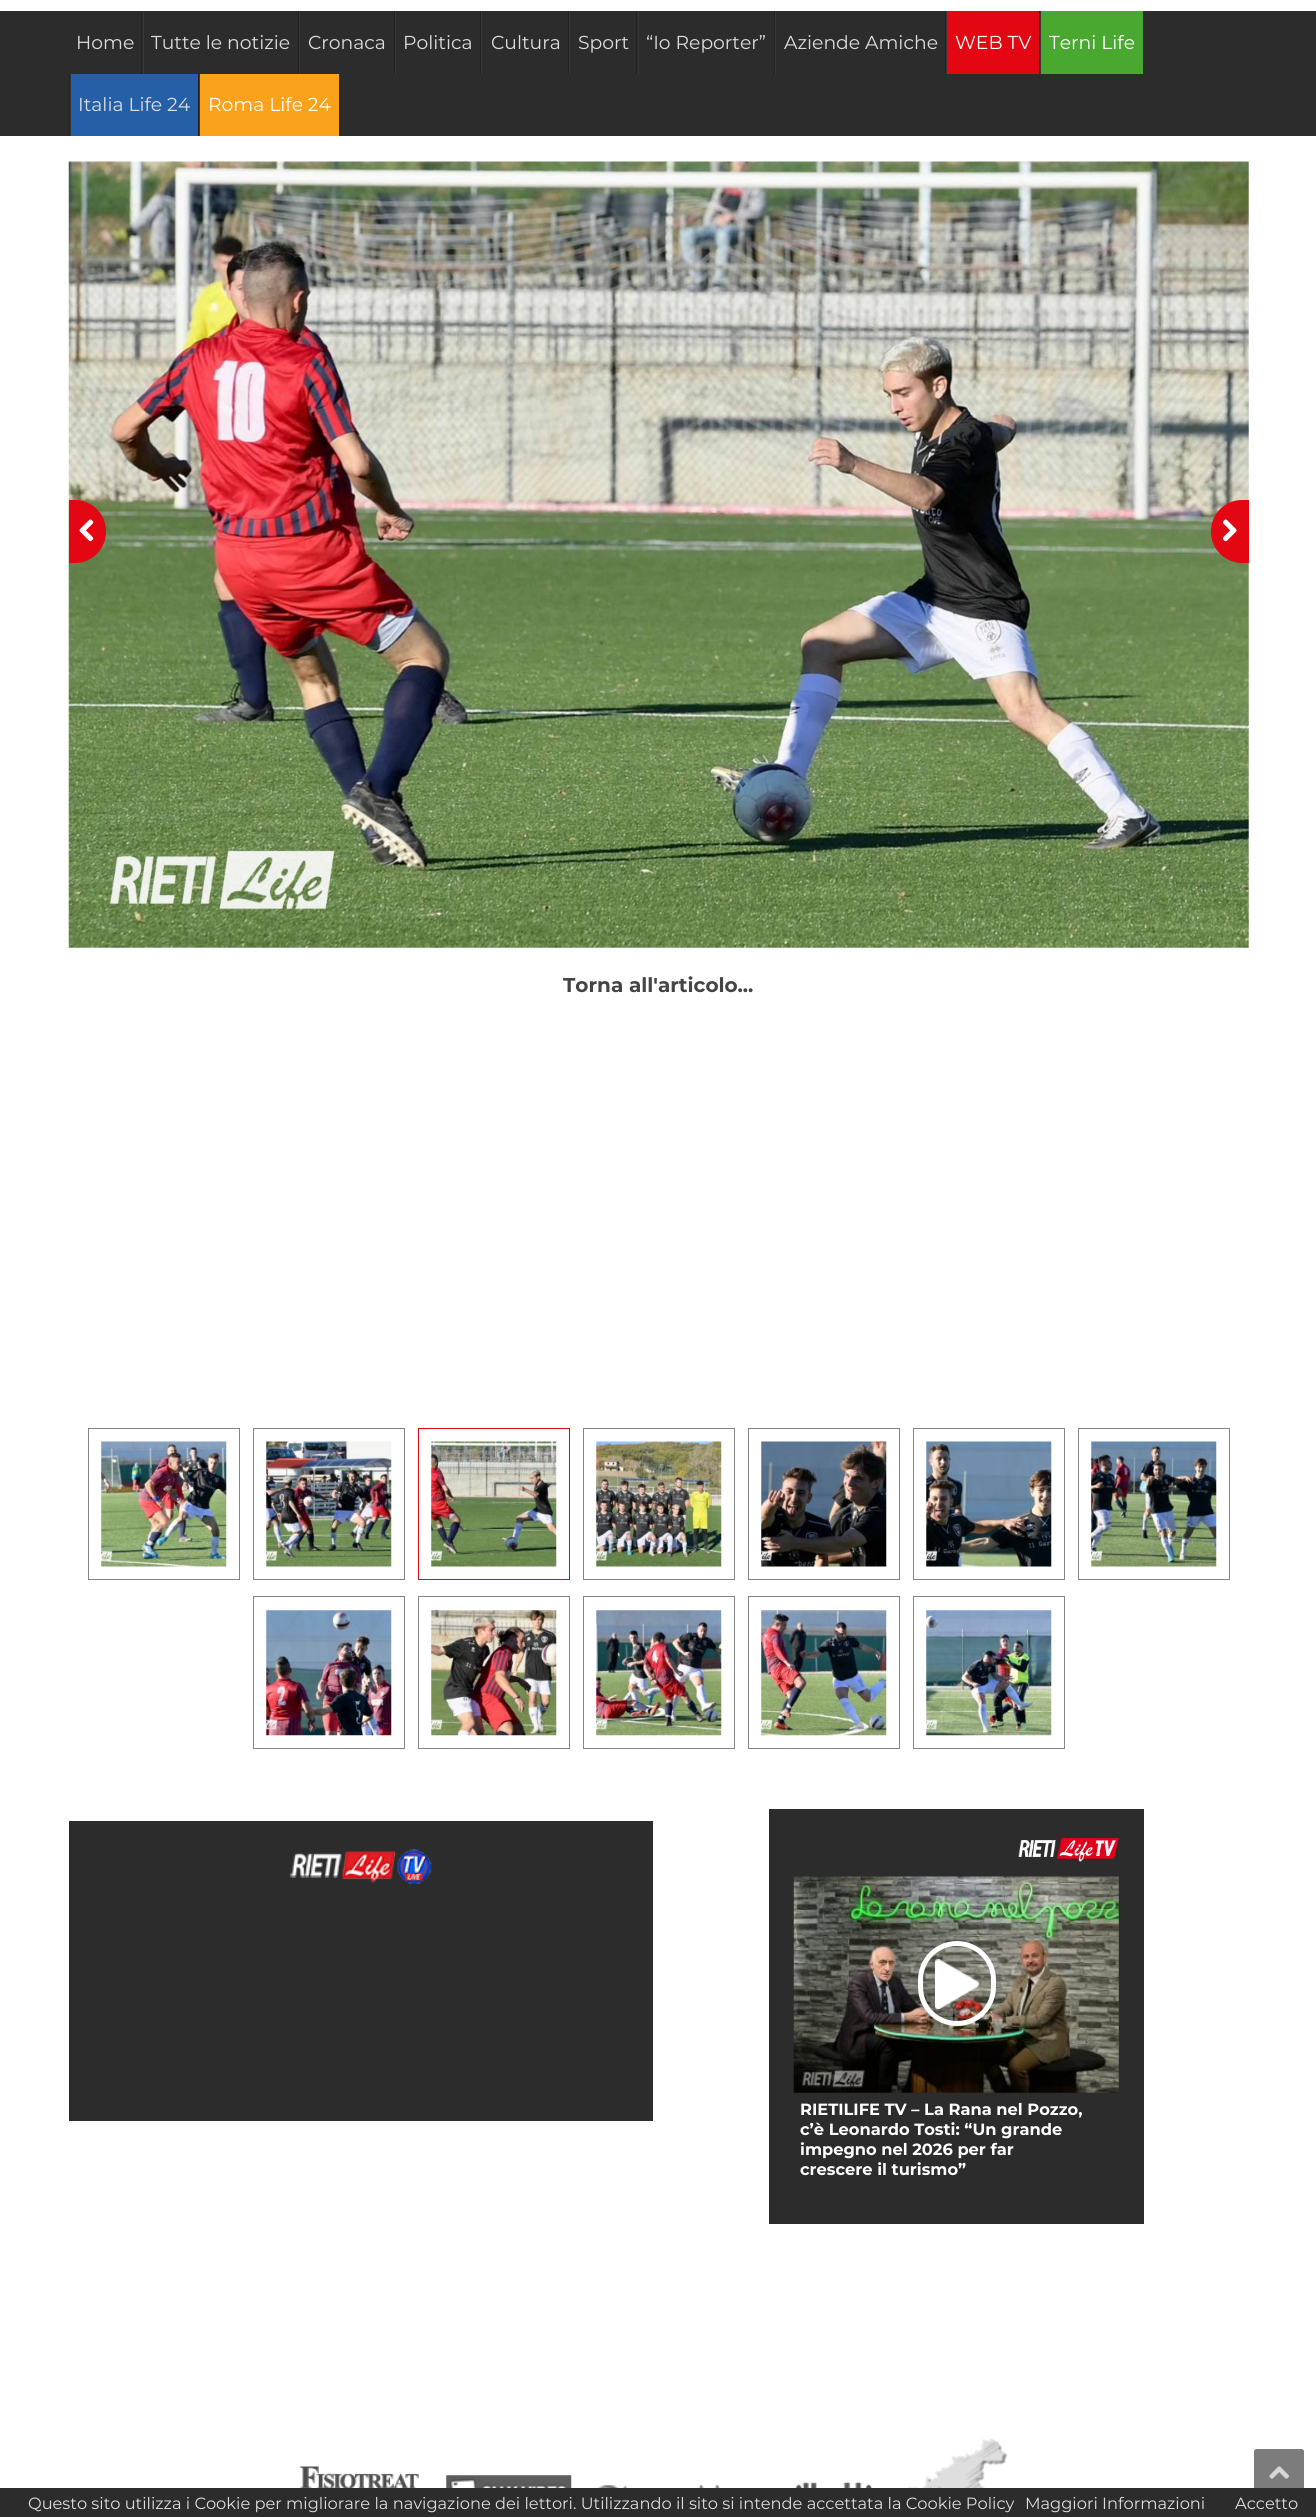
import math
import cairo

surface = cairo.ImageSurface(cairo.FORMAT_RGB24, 1316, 2517)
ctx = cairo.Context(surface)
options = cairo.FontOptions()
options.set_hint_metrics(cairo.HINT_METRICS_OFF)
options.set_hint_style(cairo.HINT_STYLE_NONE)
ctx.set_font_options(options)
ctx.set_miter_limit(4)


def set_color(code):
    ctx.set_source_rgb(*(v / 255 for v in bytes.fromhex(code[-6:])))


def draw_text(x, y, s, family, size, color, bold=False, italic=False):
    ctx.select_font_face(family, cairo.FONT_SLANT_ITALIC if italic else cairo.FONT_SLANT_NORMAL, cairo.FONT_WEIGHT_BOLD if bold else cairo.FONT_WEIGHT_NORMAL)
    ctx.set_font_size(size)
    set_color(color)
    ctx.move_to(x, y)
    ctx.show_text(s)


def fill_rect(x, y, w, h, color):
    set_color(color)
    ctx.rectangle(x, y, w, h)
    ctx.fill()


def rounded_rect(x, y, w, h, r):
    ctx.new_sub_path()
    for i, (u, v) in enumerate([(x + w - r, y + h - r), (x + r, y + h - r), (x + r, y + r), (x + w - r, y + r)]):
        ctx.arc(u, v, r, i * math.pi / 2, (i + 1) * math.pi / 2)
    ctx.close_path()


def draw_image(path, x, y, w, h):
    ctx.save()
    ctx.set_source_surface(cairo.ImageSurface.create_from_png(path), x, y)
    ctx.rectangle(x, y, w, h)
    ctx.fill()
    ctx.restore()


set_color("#ffffff")
ctx.paint()
fill_rect(0, 11, 1316, 125, "#2c2c2c")
draw_text(76, 49, "Home", "Montserrat", 18.75, "#dddddd")
fill_rect(141, 11, 1, 63, "#222222")
fill_rect(143, 11, 1, 63, "#383838")
draw_text(151, 49, "Tutte le notizie", "Montserrat", 18.75, "#dddddd")
fill_rect(298, 11, 1, 63, "#222222")
fill_rect(299, 11, 1, 63, "#383838")
draw_text(308, 49, "Cronaca", "Montserrat", 18.75, "#dddddd")
fill_rect(394, 11, 1, 63, "#222222")
fill_rect(395, 11, 1, 63, "#383838")
draw_text(403, 49, "Politica", "Montserrat", 18.75, "#dddddd")
fill_rect(480, 11, 1, 63, "#222222")
fill_rect(481, 11, 1, 63, "#383838")
draw_text(491, 49, "Cultura", "Montserrat", 18.75, "#dddddd")
fill_rect(568, 11, 1, 63, "#222222")
fill_rect(569, 11, 1, 63, "#383838")
draw_text(578, 49, "Sport", "Montserrat", 18.75, "#dddddd")
fill_rect(636, 11, 1, 63, "#222222")
fill_rect(638, 11, 1, 63, "#383838")
draw_text(646, 49, "“Io Reporter”", "Montserrat", 18.75, "#dddddd")
fill_rect(774, 11, 1, 63, "#222222")
fill_rect(775, 11, 1, 63, "#383838")
draw_text(784, 49, "Aziende Amiche", "Montserrat", 18.75, "#dddddd")
fill_rect(945, 11, 1, 63, "#222222")
fill_rect(947, 11, 92, 63, "#e30613")
fill_rect(946, 11, 1, 63, "#383838")
draw_text(955, 49, "WEB TV", "Montserrat", 18.75, "#ffffff")
fill_rect(1039, 11, 1, 63, "#222222")
fill_rect(1041, 11, 102, 63, "#49a830")
fill_rect(1040, 11, 1, 63, "#383838")
draw_text(1049, 49, "Terni Life", "Montserrat", 18.75, "#ffffff")
fill_rect(69, 74, 1, 62, "#222222")
fill_rect(71, 74, 127, 62, "#255fa7")
fill_rect(70, 74, 1, 62, "#383838")
draw_text(78, 111, "Italia Life 24", "Montserrat", 18.75, "#dddddd")
fill_rect(198, 74, 1, 62, "#222222")
fill_rect(200, 74, 139, 62, "#faa21b")
fill_rect(199, 74, 1, 62, "#383838")
draw_text(208, 111, "Roma Life 24", "Montserrat", 18.75, "#ffffff")
draw_image("assets/img1.png", 68, 161, 1181, 787)
set_color("#e30613")
ctx.new_path()
ctx.move_to(69, 500)
ctx.line_to(75, 500)
ctx.curve_to(92, 500, 106, 514, 106, 531)
ctx.line_to(106, 532)
ctx.curve_to(106, 549, 92, 563, 75, 563)
ctx.line_to(69, 563)
ctx.close_path()
ctx.fill()
draw_image("assets/img2.png", 79, 519, 15, 23)
ctx.new_path()
ctx.move_to(1242, 500)
ctx.line_to(1249, 500)
ctx.line_to(1249, 563)
ctx.line_to(1242, 563)
ctx.curve_to(1225, 563, 1211, 549, 1211, 532)
ctx.line_to(1211, 531)
ctx.curve_to(1211, 514, 1225, 500, 1242, 500)
ctx.close_path()
ctx.fill()
draw_image("assets/img3.png", 1222, 519, 15, 23)
draw_text(563, 992, "Torna all'articolo...", "Montserrat", 20, "#444444", bold=True)
ctx.rectangle(88.5, 1428.5, 151, 151)
set_color("#868686")
ctx.set_line_width(1)
ctx.stroke()
draw_image("assets/img4.png", 101, 1441, 126, 126)
ctx.rectangle(253.5, 1428.5, 151, 151)
ctx.stroke()
draw_image("assets/img5.png", 266, 1441, 126, 126)
ctx.rectangle(418.5, 1428.5, 151, 151)
set_color("#e30613")
ctx.stroke()
draw_image("assets/img6.png", 431, 1441, 126, 126)
ctx.rectangle(583.5, 1428.5, 151, 151)
set_color("#868686")
ctx.stroke()
draw_image("assets/img7.png", 596, 1441, 126, 126)
ctx.rectangle(748.5, 1428.5, 151, 151)
ctx.stroke()
draw_image("assets/img8.png", 761, 1441, 126, 126)
ctx.rectangle(913.5, 1428.5, 151, 151)
ctx.stroke()
draw_image("assets/img9.png", 926, 1441, 126, 126)
ctx.rectangle(1078.5, 1428.5, 151, 151)
ctx.stroke()
draw_image("assets/img10.png", 1091, 1441, 126, 126)
ctx.rectangle(253.5, 1596.5, 151, 152)
ctx.stroke()
draw_image("assets/img11.png", 266, 1610, 126, 126)
ctx.rectangle(418.5, 1596.5, 151, 152)
ctx.stroke()
draw_image("assets/img12.png", 431, 1610, 126, 126)
ctx.rectangle(583.5, 1596.5, 151, 152)
ctx.stroke()
draw_image("assets/img13.png", 596, 1610, 126, 126)
ctx.rectangle(748.5, 1596.5, 151, 152)
ctx.stroke()
draw_image("assets/img14.png", 761, 1610, 126, 126)
ctx.rectangle(913.5, 1596.5, 151, 152)
ctx.stroke()
draw_image("assets/img15.png", 926, 1610, 126, 126)
fill_rect(69, 1821, 584, 300, "#2c2c2c")
draw_image("assets/img16.png", 289, 1848, 143, 37)
fill_rect(769, 1809, 375, 415, "#2c2c2c")
draw_image("assets/img17.png", 1018, 1838, 101, 24)
draw_image("assets/img18.png", 793, 1876, 326, 217)
draw_image("assets/img19.png", 935, 1959, 44, 50)
rounded_rect(920.5, 1943.5, 73, 80, 36.5)
set_color("#ffffff")
ctx.set_line_width(5)
ctx.stroke()
draw_text(800, 2115, "RIETILIFE TV – La Rana nel Pozzo,", "Montserrat", 16.25, "#ffffff", bold=True)
draw_text(800, 2135, "c’è Leonardo Tosti: “Un grande", "Montserrat", 16.25, "#ffffff", bold=True)
draw_text(800, 2155, "impegno nel 2026 per far", "Montserrat", 16.25, "#ffffff", bold=True)
draw_text(800, 2175, "crescere il turismo”", "Montserrat", 16.25, "#ffffff", bold=True)
draw_image("assets/img20.png", 299, 2466, 120, 22)
draw_image("assets/img21.png", 446, 2475, 126, 13)
draw_image("assets/img22.png", 597, 2485, 123, 3)
draw_image("assets/img23.png", 795, 2482, 77, 6)
draw_image("assets/img24.png", 907, 2438, 101, 50)
set_color("#7c7c7c")
rounded_rect(1254, 2449, 50, 50, 2.5)
ctx.fill()
draw_image("assets/img25.png", 1269, 2466, 20, 13)
fill_rect(0, 2488, 1316, 29, "#2c2c2c")
draw_text(28, 2509, "Questo sito utilizza i Cookie per migliorare la navigazione dei lettori. Utilizzando il sito si intende accettata la Cookie Policy", "Montserrat", 16.25, "#dddddd")
draw_text(1025, 2509, "Maggiori Informazioni", "Montserrat", 16.25, "#dddddd")
draw_text(1235, 2509, "Accetto", "Montserrat", 16.25, "#dddddd")
surface.write_to_png("output.png")
